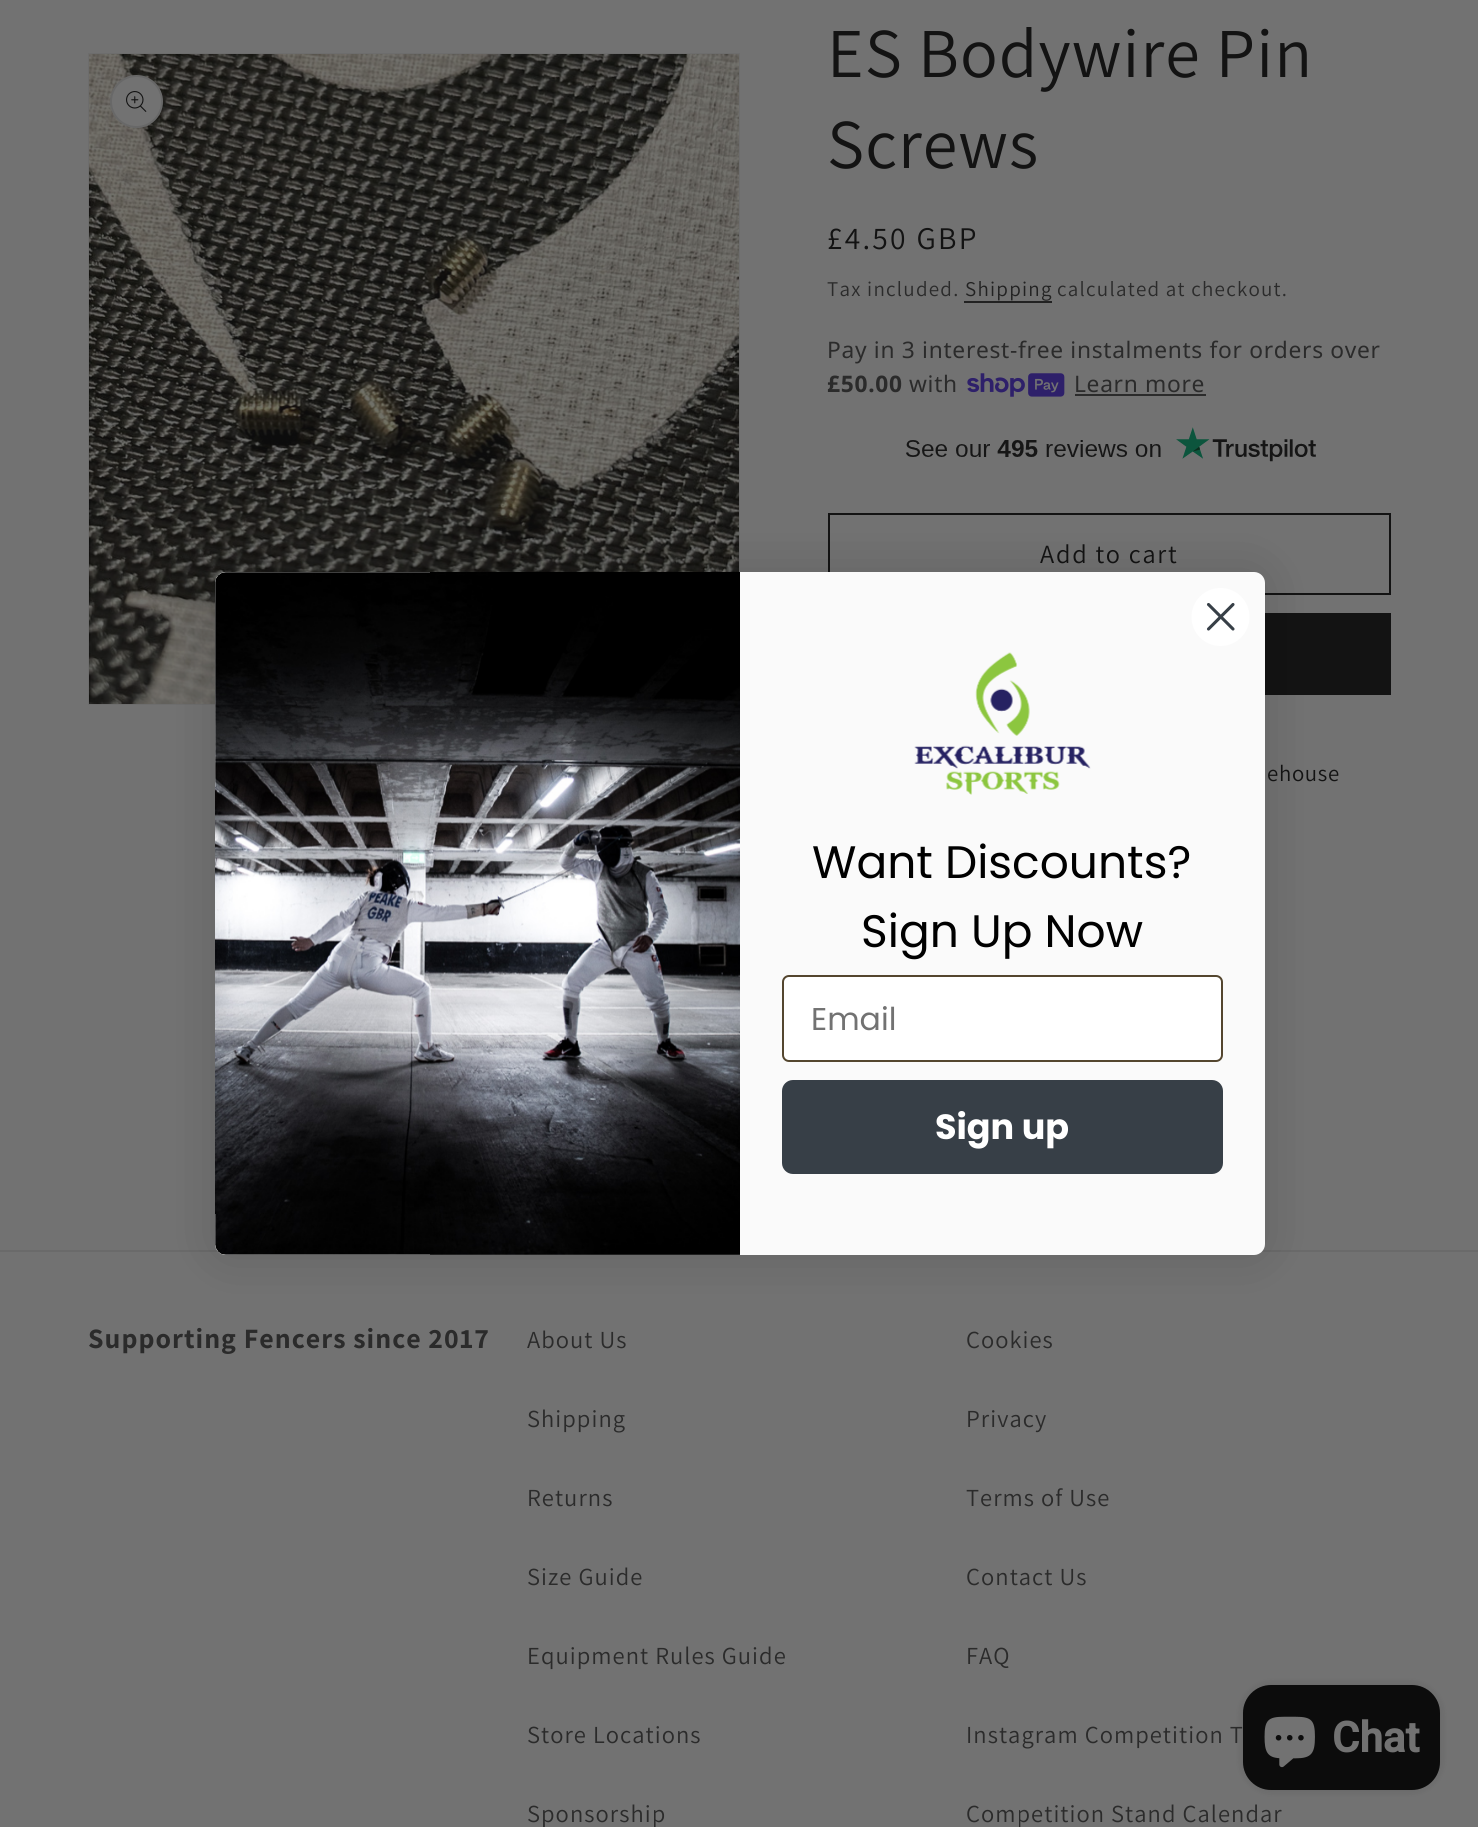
import math
import cairo

surface = cairo.ImageSurface(cairo.FORMAT_RGB24, 1478, 1827)
ctx = cairo.Context(surface)
options = cairo.FontOptions()
options.set_hint_metrics(cairo.HINT_METRICS_OFF)
options.set_hint_style(cairo.HINT_STYLE_NONE)
ctx.set_font_options(options)
ctx.set_miter_limit(4)


def set_color(code):
    ctx.set_source_rgb(*(v / 255 for v in bytes.fromhex(code[-6:])))


def draw_text(x, y, s, family, size, color, bold=False, italic=False):
    ctx.select_font_face(family, cairo.FONT_SLANT_ITALIC if italic else cairo.FONT_SLANT_NORMAL, cairo.FONT_WEIGHT_BOLD if bold else cairo.FONT_WEIGHT_NORMAL)
    ctx.set_font_size(size)
    set_color(color)
    ctx.move_to(x, y)
    ctx.show_text(s)


def draw_spaced(x, y, s, letter, word):
    ctx.move_to(x, y)
    for ch in s:
        ctx.show_text(ch)
        ctx.rel_move_to(letter + word * (ch == ' '), 0)


def fill_rect(x, y, w, h, color):
    set_color(color)
    ctx.rectangle(x, y, w, h)
    ctx.fill()


def rounded_rect(x, y, w, h, r):
    ctx.new_sub_path()
    for i, (u, v) in enumerate([(x + w - r, y + h - r), (x + r, y + h - r), (x + r, y + r), (x + w - r, y + r)]):
        ctx.arc(u, v, r, i * math.pi / 2, (i + 1) * math.pi / 2)
    ctx.close_path()


def draw_shadow(x, y, w, h, r, blur, alpha):
    ctx.push_group_with_content(cairo.CONTENT_ALPHA)
    ctx.set_operator(cairo.OPERATOR_SOURCE)
    for i in range(15, -16, -2):
        e = blur * i / 6
        if min(w, h) + 2 * e > 0:
            ctx.set_source_rgba(0, 0, 0, alpha * math.erfc((i - 1) / 8.5) / 2)
            rounded_rect(x - e, y - e, w + 2 * e, h + 2 * e, max(0, min(r + e + blur * .6, min(w, h) / 2 + e)))
            ctx.fill()
    ctx.mask(ctx.pop_group())


def draw_image(path, x, y, w, h):
    ctx.save()
    ctx.set_source_surface(cairo.ImageSurface.create_from_png(path), x, y)
    ctx.rectangle(x, y, w, h)
    ctx.fill()
    ctx.restore()


set_color("#727272")
ctx.paint()
ctx.rectangle(89, 54, 650, 650)
set_color("#6d6d6d")
ctx.stroke()
draw_image("assets/img1.png", 89, 54, 650, 650)
set_color("#727272")
ctx.arc(136.5, 101.5, 26.5, 0, 2 * math.pi)
ctx.fill()
ctx.arc(136.5, 101.5, 25.5, 0, 2 * math.pi)
ctx.set_source_rgba(0.075, 0.075, 0.075, 0.1)
ctx.stroke()
draw_image("assets/img2.png", 126, 91, 21, 21)
ctx.select_font_face("Assistant")
ctx.set_font_size(70)
set_color("#131313")
draw_spaced(827, 77, "ES Bodywire Pin", 1.05, 0)
draw_spaced(827, 168, "Screws", 1.05, 0)
ctx.set_font_size(31.5)
draw_spaced(827, 249, "£4.50 GBP", 2.25, 0)
ctx.set_font_size(21)
set_color("#2b2b2b")
draw_spaced(827, 296, "Tax included.", 1.25, 0)
set_color("#222222")
draw_spaced(965, 296, "Shipping", 1.25, 0)
fill_rect(964, 301, 88, 2, "#222222")
set_color("#2b2b2b")
draw_spaced(1057, 296, "calculated at checkout.", 1.25, 0)
ctx.select_font_face("Noto Sans")
ctx.set_font_size(22.75)
draw_spaced(827, 358, "Pay in 3 interest-free instalments for orders over", 0.7, 0)
ctx.select_font_face("Noto Sans", cairo.FONT_SLANT_NORMAL, cairo.FONT_WEIGHT_BOLD)
draw_spaced(827, 392, "£50.00", 0.7, 0)
ctx.select_font_face("Noto Sans")
draw_spaced(909, 392, "with", 0.7, 0)
draw_image("assets/img3.png", 967, 373, 98, 24)
draw_spaced(1074, 392, "Learn more", 0.7, 0)
fill_rect(1075, 394, 131, 2, "#2b2b2b")
draw_image("assets/img4.png", 906, 427, 410, 35)
ctx.rectangle(829, 514, 561, 80)
set_color("#131313")
ctx.stroke()
ctx.select_font_face("Assistant")
ctx.set_font_size(26.25)
draw_spaced(1040, 563, "Add to cart", 1.75, 0)
fill_rect(1265, 613, 126, 82, "#131313")
ctx.set_font_size(22.75)
draw_spaced(1267, 781, "ehouse", 0.7, 0)
fill_rect(0, 1250, 1478, 2, "#6a6a6a")
set_color("#000000")
draw_shadow(215, 572, 1050, 683, 11, 26, 0.15)
set_color("#fafafa")
rounded_rect(215, 572, 1050, 683, 11)
ctx.fill()
set_color("#ffffff")
ctx.arc(1220.5, 617, 29, 0, 2 * math.pi)
ctx.fill()
ctx.new_path()
ctx.move_to(1208.5, 604.5)
ctx.line_to(1233, 629)
ctx.move_to(1208.5, 629)
ctx.line_to(1233, 604.5)
ctx.close_path()
set_color("#373f47")
ctx.set_line_width(3.1)
ctx.set_line_cap(cairo.LINE_CAP_ROUND)
ctx.set_line_join(cairo.LINE_JOIN_ROUND)
ctx.stroke()
draw_image("assets/img5.png", 215, 572, 525, 683)
draw_image("assets/img6.png", 914, 652, 177, 143)
draw_text(812, 878, "Want Discounts?", "Poppins", 45.5, "#000000")
draw_text(861, 947, "Sign Up Now", "Poppins", 45.5, "#000000")
set_color("#ffffff")
rounded_rect(783, 976, 439, 85, 6)
ctx.fill_preserve()
set_color("#54462f")
ctx.set_line_width(2)
ctx.set_line_cap(cairo.LINE_CAP_BUTT)
ctx.set_line_join(cairo.LINE_JOIN_MITER)
ctx.stroke()
draw_text(811, 1030, "Email", "Poppins", 31.5, "#727272")
set_color("#373f47")
rounded_rect(782, 1080, 441, 94, 11)
ctx.fill()
draw_text(935, 1139, "Sign up", "Poppins", 35, "#ffffff", bold=True)
ctx.select_font_face("Assistant", cairo.FONT_SLANT_NORMAL, cairo.FONT_WEIGHT_BOLD)
ctx.set_font_size(28)
set_color("#2b2b2b")
draw_spaced(88, 1348, "Supporting Fencers since 2017", 1.05, 0)
ctx.select_font_face("Assistant")
ctx.set_font_size(24.5)
draw_spaced(527, 1348, "About Us", 1.05, 0)
draw_spaced(527, 1427, "Shipping", 1.05, 0)
draw_spaced(527, 1506, "Returns", 1.05, 0)
draw_spaced(527, 1585, "Size Guide", 1.05, 0)
draw_spaced(527, 1664, "Equipment Rules Guide", 1.05, 0)
draw_spaced(527, 1743, "Store Locations", 1.05, 0)
draw_spaced(527, 1822, "Sponsorship", 1.05, 0)
draw_spaced(966, 1348, "Cookies", 1.05, 0)
draw_spaced(966, 1427, "Privacy", 1.05, 0)
draw_spaced(966, 1506, "Terms of Use", 1.05, 0)
draw_spaced(966, 1585, "Contact Us", 1.05, 0)
draw_spaced(966, 1664, "FAQ", 1.05, 0)
draw_spaced(966, 1743, "Instagram Competition T", 1.05, 0)
draw_spaced(966, 1822, "Competition Stand Calendar", 1.05, 0)
set_color("#0c0c0c")
draw_shadow(1243, 1685, 197, 105, 28, 4.5, 0.15)
set_color("#0c0c0c")
rounded_rect(1243, 1685, 197, 105, 28)
ctx.fill()
draw_image("assets/img7.png", 1264, 1716, 51, 52)
draw_text(1332, 1752, "Chat", "Roboto", 42, "#727272", bold=True)
surface.write_to_png("output.png")
